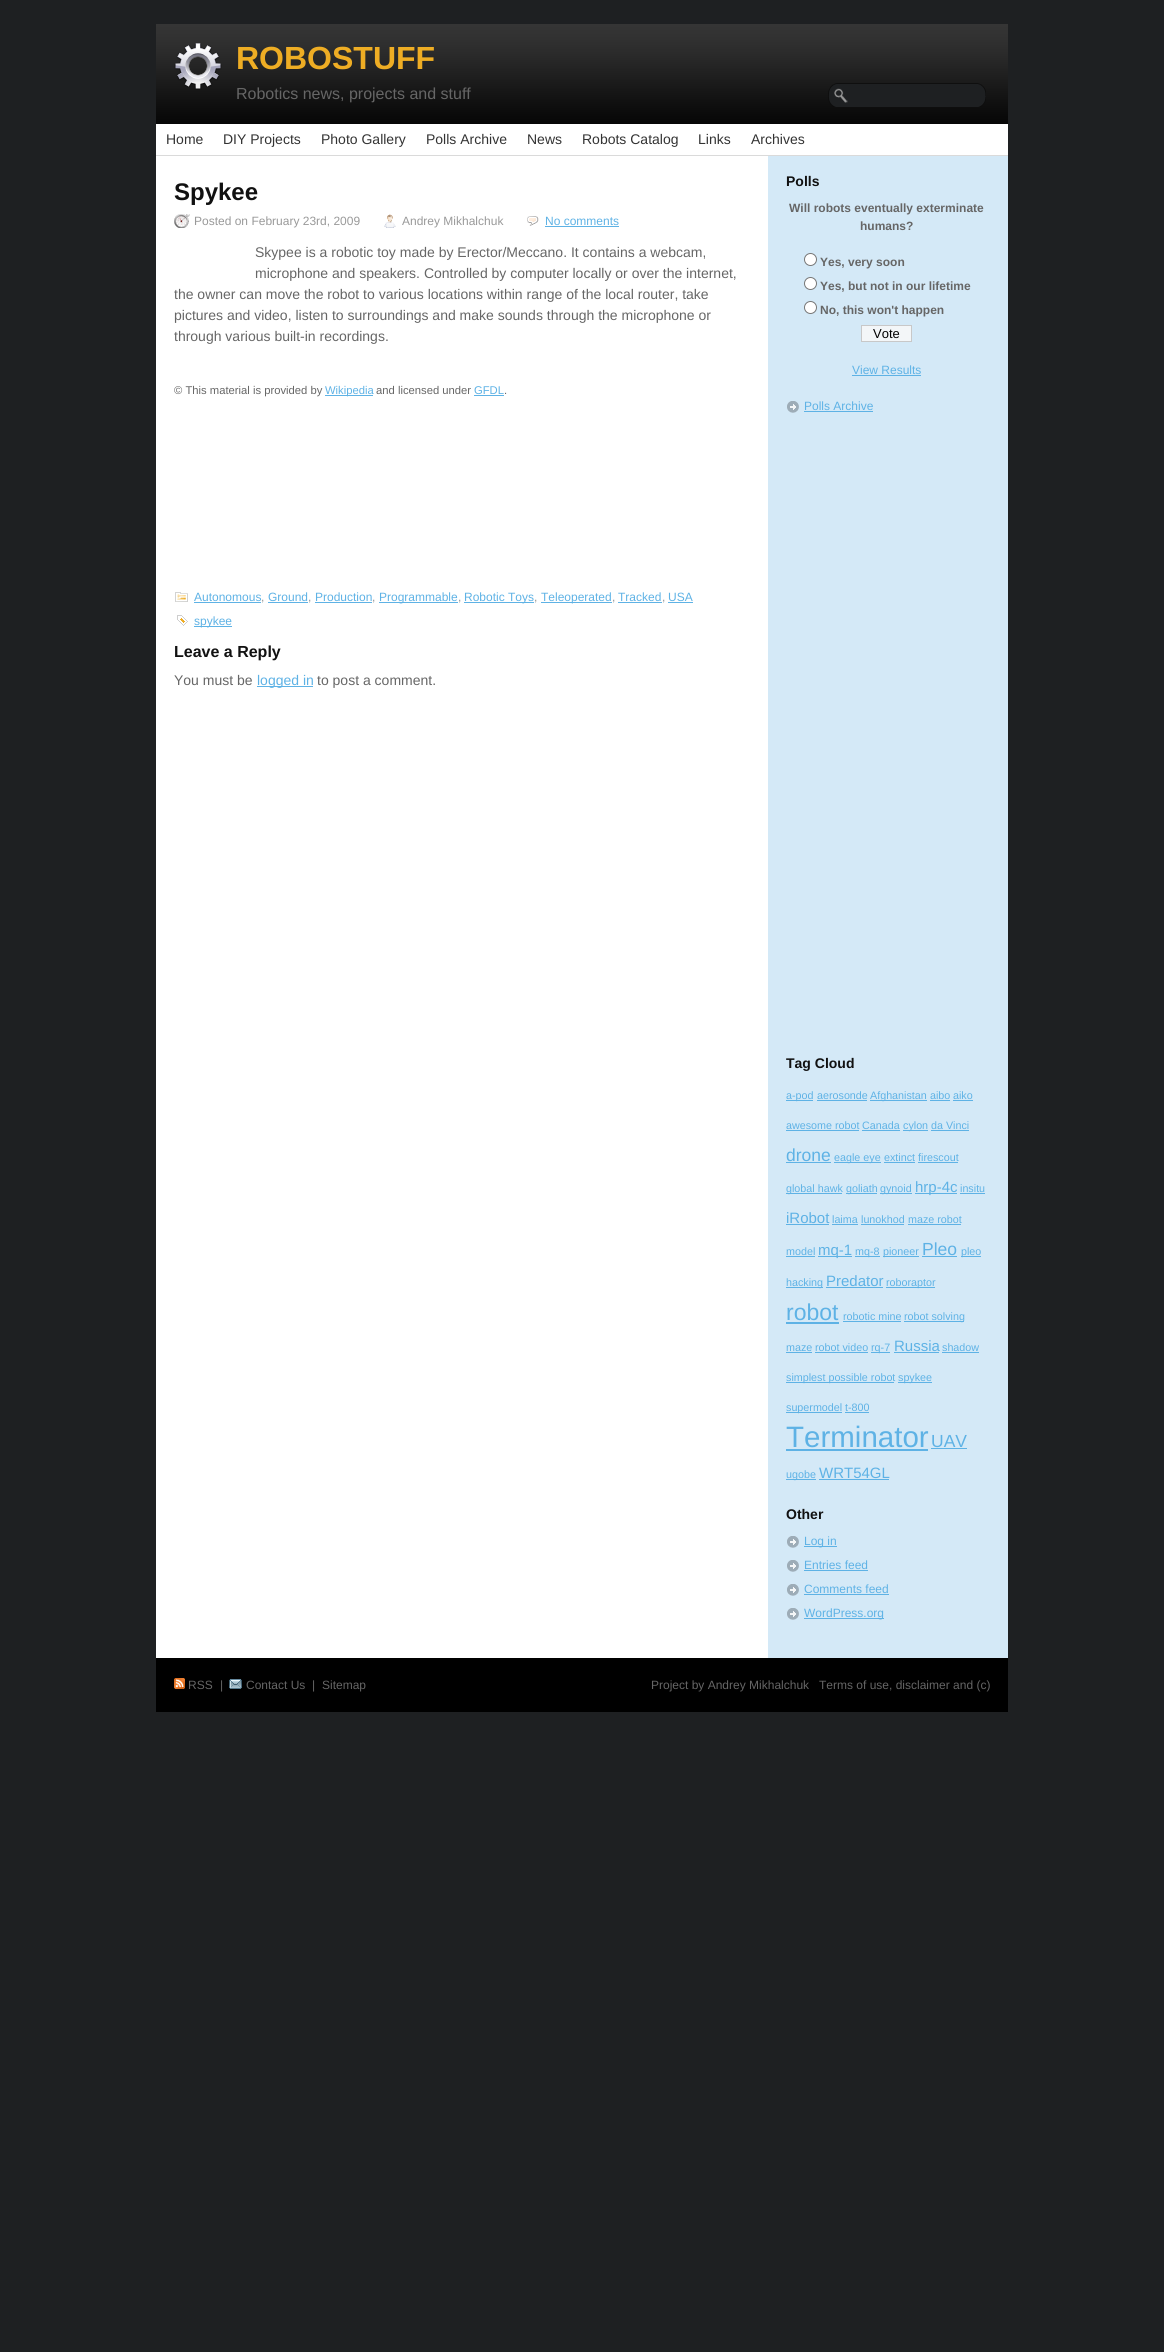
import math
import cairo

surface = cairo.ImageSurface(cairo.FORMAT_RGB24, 1164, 2352)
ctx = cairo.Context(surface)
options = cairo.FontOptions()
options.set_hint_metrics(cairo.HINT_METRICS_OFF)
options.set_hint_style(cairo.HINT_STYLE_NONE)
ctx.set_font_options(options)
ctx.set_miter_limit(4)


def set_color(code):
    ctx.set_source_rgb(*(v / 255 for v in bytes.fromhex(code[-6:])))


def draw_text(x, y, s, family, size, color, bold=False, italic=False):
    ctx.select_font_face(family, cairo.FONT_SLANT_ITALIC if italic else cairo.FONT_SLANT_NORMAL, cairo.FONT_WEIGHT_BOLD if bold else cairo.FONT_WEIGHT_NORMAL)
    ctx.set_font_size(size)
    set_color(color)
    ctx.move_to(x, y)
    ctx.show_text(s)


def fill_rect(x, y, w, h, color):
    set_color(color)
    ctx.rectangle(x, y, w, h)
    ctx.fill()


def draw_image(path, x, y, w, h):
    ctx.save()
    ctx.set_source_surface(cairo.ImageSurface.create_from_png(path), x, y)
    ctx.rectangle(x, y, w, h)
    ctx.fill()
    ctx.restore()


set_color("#1e2022")
ctx.paint()
draw_image("assets/img1.png", 156, 24, 852, 100)
draw_image("assets/img2.png", 174, 43, 48, 47)
draw_text(236, 69, "ROBOSTUFF", "Liberation Sans", 32, "#eead24", bold=True)
draw_text(236, 99, "Robotics news, projects and stuff", "Liberation Sans", 16, "#666666")
draw_image("assets/img3.png", 828, 83, 158, 24)
draw_image("assets/img4.png", 156, 155, 852, 1)
fill_rect(156, 124, 852, 31, "#ffffff")
draw_text(166, 144, "Home", "Liberation Sans", 14, "#333333")
draw_text(223, 144, "DIY Projects", "Liberation Sans", 14, "#333333")
draw_text(321, 144, "Photo Gallery", "Liberation Sans", 14, "#333333")
draw_text(426, 144, "Polls Archive", "Liberation Sans", 14, "#333333")
draw_text(527, 144, "News", "Liberation Sans", 14, "#333333")
draw_text(582, 144, "Robots Catalog", "Liberation Sans", 14, "#333333")
draw_text(698, 144, "Links", "Liberation Sans", 14, "#333333")
draw_text(751, 144, "Archives", "Liberation Sans", 14, "#333333")
fill_rect(156, 156, 612, 1502, "#ffffff")
fill_rect(768, 156, 240, 1502, "#d4e9f7")
draw_text(174, 200, "Spykee", "Liberation Sans", 24, "#111111", bold=True)
draw_image("assets/img5.png", 174, 214, 16, 14)
draw_text(194, 225, "Posted on February 23rd, 2009", "Liberation Sans", 12, "#999999")
draw_image("assets/img6.png", 384, 214, 12, 14)
draw_text(402, 225, "Andrey Mikhalchuk", "Liberation Sans", 12, "#999999")
draw_image("assets/img7.png", 527, 216, 12, 10)
draw_text(545, 225, "No comments", "Liberation Sans", 12, "#5eb2e5")
fill_rect(545, 226, 74, 1, "#5eb2e5")
draw_text(255, 257, "Skypee is a robotic toy made by Erector/Meccano. It contains a webcam,", "Liberation Sans", 14, "#666666")
draw_text(255, 278, "microphone and speakers. Controlled by computer locally or over the internet,", "Liberation Sans", 14, "#666666")
draw_text(174, 299, "the owner can move the robot to various locations within range of the local router, take", "Liberation Sans", 14, "#666666")
draw_text(174, 320, "pictures and video, listen to surroundings and make sounds through the microphone or", "Liberation Sans", 14, "#666666")
draw_text(174, 341, "through various built-in recordings.", "Liberation Sans", 14, "#666666")
draw_text(174, 394, "© This material is provided by", "Liberation Sans", 11.25, "#666666")
fill_rect(325, 395, 48, 1, "#5eb2e5")
draw_text(325, 394, "Wikipedia", "Liberation Sans", 11.25, "#5eb2e5")
draw_text(376, 394, "and licensed under", "Liberation Sans", 11.25, "#666666")
draw_text(474, 394, "GFDL", "Liberation Sans", 11.25, "#5eb2e5")
fill_rect(474, 395, 30, 1, "#5eb2e5")
draw_text(504, 394, ".", "Liberation Sans", 11.25, "#666666")
draw_image("assets/img8.png", 175, 592, 13, 10)
draw_text(194, 601, "Autonomous", "Liberation Sans", 12, "#5eb2e5")
fill_rect(194, 602, 67, 1, "#5eb2e5")
draw_text(261, 601, ",", "Liberation Sans", 12, "#999999")
draw_text(268, 601, "Ground", "Liberation Sans", 12, "#5eb2e5")
fill_rect(268, 602, 40, 1, "#5eb2e5")
draw_text(308, 601, ",", "Liberation Sans", 12, "#999999")
draw_text(315, 601, "Production", "Liberation Sans", 12, "#5eb2e5")
fill_rect(315, 602, 57, 1, "#5eb2e5")
draw_text(372, 601, ",", "Liberation Sans", 12, "#999999")
fill_rect(379, 602, 79, 1, "#5eb2e5")
draw_text(379, 601, "Programmable", "Liberation Sans", 12, "#5eb2e5")
draw_text(458, 601, ",", "Liberation Sans", 12, "#999999")
fill_rect(464, 602, 70, 1, "#5eb2e5")
draw_text(464, 601, "Robotic Toys", "Liberation Sans", 12, "#5eb2e5")
draw_text(534, 601, ",", "Liberation Sans", 12, "#999999")
fill_rect(541, 602, 71, 1, "#5eb2e5")
draw_text(541, 601, "Teleoperated", "Liberation Sans", 12, "#5eb2e5")
draw_text(612, 601, ",", "Liberation Sans", 12, "#999999")
draw_text(618, 601, "Tracked", "Liberation Sans", 12, "#5eb2e5")
fill_rect(618, 602, 44, 1, "#5eb2e5")
draw_text(662, 601, ",", "Liberation Sans", 12, "#999999")
draw_text(668, 601, "USA", "Liberation Sans", 12, "#5eb2e5")
fill_rect(668, 602, 25, 1, "#5eb2e5")
draw_image("assets/img9.png", 177, 615, 11, 11)
fill_rect(194, 626, 38, 1, "#5eb2e5")
draw_text(194, 625, "spykee", "Liberation Sans", 12, "#5eb2e5")
draw_text(174, 657, "Leave a Reply", "Liberation Sans", 16, "#111111", bold=True)
draw_text(174, 685, "You must be", "Liberation Sans", 14, "#666666")
fill_rect(257, 686, 56, 1, "#5eb2e5")
draw_text(257, 685, "logged in", "Liberation Sans", 14, "#5eb2e5")
draw_text(317, 685, "to post a comment.", "Liberation Sans", 14, "#666666")
draw_text(786, 186, "Polls", "Liberation Sans", 14, "#111111", bold=True)
draw_text(789, 212, "Will robots eventually exterminate", "Liberation Sans", 12, "#666666", bold=True)
draw_text(860, 230, "humans?", "Liberation Sans", 12, "#666666", bold=True)
set_color("#ffffff")
ctx.new_path()
ctx.arc(810.5, 259.5, 6, 0, 2 * math.pi)
ctx.fill_preserve()
set_color("#767676")
ctx.set_line_width(1)
ctx.stroke()
draw_text(820, 266, "Yes, very soon", "Liberation Sans", 12, "#666666", bold=True)
set_color("#ffffff")
ctx.new_path()
ctx.arc(810.5, 283.5, 6, 0, 2 * math.pi)
ctx.fill_preserve()
set_color("#767676")
ctx.stroke()
draw_text(820, 290, "Yes, but not in our lifetime", "Liberation Sans", 12, "#666666", bold=True)
set_color("#ffffff")
ctx.new_path()
ctx.arc(810.5, 307.5, 6, 0, 2 * math.pi)
ctx.fill_preserve()
set_color("#767676")
ctx.stroke()
draw_text(820, 314, "No, this won't happen", "Liberation Sans", 12, "#666666", bold=True)
set_color("#f3f6f8")
ctx.rectangle(861.5, 325.5, 50, 16)
ctx.fill_preserve()
set_color("#c8c8c8")
ctx.stroke()
draw_text(873, 338, "Vote", "Liberation Sans", 13, "#000000")
draw_text(852, 374, "View Results", "Liberation Sans", 12, "#5eb2e5")
fill_rect(852, 375, 69, 1, "#5eb2e5")
draw_image("assets/img10.png", 787, 401, 12, 12)
draw_text(804, 410, "Polls Archive", "Liberation Sans", 12, "#5eb2e5")
fill_rect(804, 411, 69, 1, "#5eb2e5")
draw_text(786, 1068, "Tag Cloud", "Liberation Sans", 14, "#111111", bold=True)
fill_rect(786, 1100, 27, 1, "#5eb2e5")
draw_text(786, 1099, "a-pod", "Liberation Sans", 10.75, "#5eb2e5")
draw_text(817, 1099, "aerosonde", "Liberation Sans", 10.75, "#5eb2e5")
fill_rect(817, 1100, 50, 1, "#5eb2e5")
fill_rect(870, 1100, 57, 1, "#5eb2e5")
draw_text(870, 1099, "Afghanistan", "Liberation Sans", 10.75, "#5eb2e5")
draw_text(930, 1099, "aibo", "Liberation Sans", 10.75, "#5eb2e5")
fill_rect(930, 1100, 20, 1, "#5eb2e5")
draw_text(953, 1099, "aiko", "Liberation Sans", 10.75, "#5eb2e5")
fill_rect(953, 1100, 20, 1, "#5eb2e5")
draw_text(786, 1129, "awesome robot", "Liberation Sans", 10.75, "#5eb2e5")
fill_rect(786, 1130, 73, 1, "#5eb2e5")
draw_text(862, 1129, "Canada", "Liberation Sans", 10.75, "#5eb2e5")
fill_rect(862, 1130, 38, 1, "#5eb2e5")
fill_rect(903, 1130, 25, 1, "#5eb2e5")
draw_text(903, 1129, "cylon", "Liberation Sans", 10.75, "#5eb2e5")
draw_text(931, 1129, "da Vinci", "Liberation Sans", 10.75, "#5eb2e5")
fill_rect(931, 1130, 38, 1, "#5eb2e5")
draw_text(786, 1161, "drone", "Liberation Sans", 17.5, "#5eb2e5")
fill_rect(786, 1162, 45, 1, "#5eb2e5")
fill_rect(834, 1162, 47, 1, "#5eb2e5")
draw_text(834, 1161, "eagle eye", "Liberation Sans", 10.75, "#5eb2e5")
draw_text(884, 1161, "extinct", "Liberation Sans", 10.75, "#5eb2e5")
fill_rect(884, 1162, 31, 1, "#5eb2e5")
draw_text(918, 1161, "firescout", "Liberation Sans", 10.75, "#5eb2e5")
fill_rect(918, 1162, 40, 1, "#5eb2e5")
fill_rect(786, 1193, 56, 1, "#5eb2e5")
draw_text(786, 1192, "global hawk", "Liberation Sans", 10.75, "#5eb2e5")
fill_rect(846, 1193, 31, 1, "#5eb2e5")
draw_text(846, 1192, "goliath", "Liberation Sans", 10.75, "#5eb2e5")
fill_rect(880, 1193, 32, 1, "#5eb2e5")
draw_text(880, 1192, "gynoid", "Liberation Sans", 10.75, "#5eb2e5")
fill_rect(915, 1193, 42, 1, "#5eb2e5")
draw_text(915, 1192, "hrp-4c", "Liberation Sans", 15, "#5eb2e5")
draw_text(960, 1192, "insitu", "Liberation Sans", 10.75, "#5eb2e5")
fill_rect(960, 1193, 25, 1, "#5eb2e5")
draw_text(786, 1223, "iRobot", "Liberation Sans", 15, "#5eb2e5")
fill_rect(786, 1224, 43, 1, "#5eb2e5")
draw_text(832, 1223, "laima", "Liberation Sans", 10.75, "#5eb2e5")
fill_rect(832, 1224, 26, 1, "#5eb2e5")
draw_text(861, 1223, "lunokhod", "Liberation Sans", 10.75, "#5eb2e5")
fill_rect(861, 1224, 43, 1, "#5eb2e5")
draw_text(908, 1223, "maze robot", "Liberation Sans", 10.75, "#5eb2e5")
fill_rect(908, 1224, 53, 1, "#5eb2e5")
draw_text(786, 1255, "model", "Liberation Sans", 10.75, "#5eb2e5")
fill_rect(786, 1256, 29, 1, "#5eb2e5")
fill_rect(818, 1256, 34, 1, "#5eb2e5")
draw_text(818, 1255, "mq-1", "Liberation Sans", 15, "#5eb2e5")
fill_rect(855, 1256, 25, 1, "#5eb2e5")
draw_text(855, 1255, "mq-8", "Liberation Sans", 10.75, "#5eb2e5")
fill_rect(883, 1256, 36, 1, "#5eb2e5")
draw_text(883, 1255, "pioneer", "Liberation Sans", 10.75, "#5eb2e5")
draw_text(922, 1255, "Pleo", "Liberation Sans", 17.5, "#5eb2e5")
fill_rect(922, 1256, 35, 1, "#5eb2e5")
fill_rect(961, 1256, 20, 1, "#5eb2e5")
draw_text(961, 1255, "pleo", "Liberation Sans", 10.75, "#5eb2e5")
fill_rect(786, 1287, 37, 1, "#5eb2e5")
draw_text(786, 1286, "hacking", "Liberation Sans", 10.75, "#5eb2e5")
draw_text(826, 1286, "Predator", "Liberation Sans", 15, "#5eb2e5")
fill_rect(826, 1287, 57, 1, "#5eb2e5")
fill_rect(886, 1287, 49, 1, "#5eb2e5")
draw_text(886, 1286, "roboraptor", "Liberation Sans", 10.75, "#5eb2e5")
draw_text(786, 1320, "robot", "Liberation Sans", 23, "#5eb2e5")
fill_rect(786, 1322, 53, 2, "#5eb2e5")
draw_text(843, 1320, "robotic mine", "Liberation Sans", 10.75, "#5eb2e5")
fill_rect(843, 1321, 58, 1, "#5eb2e5")
fill_rect(904, 1321, 60, 1, "#5eb2e5")
draw_text(904, 1320, "robot solving", "Liberation Sans", 10.75, "#5eb2e5")
draw_text(786, 1351, "maze", "Liberation Sans", 10.75, "#5eb2e5")
fill_rect(786, 1352, 26, 1, "#5eb2e5")
draw_text(815, 1351, "robot video", "Liberation Sans", 10.75, "#5eb2e5")
fill_rect(815, 1352, 53, 1, "#5eb2e5")
fill_rect(871, 1352, 19, 1, "#5eb2e5")
draw_text(871, 1351, "rq-7", "Liberation Sans", 10.75, "#5eb2e5")
draw_text(894, 1351, "Russia", "Liberation Sans", 15, "#5eb2e5")
fill_rect(894, 1352, 45, 1, "#5eb2e5")
draw_text(942, 1351, "shadow", "Liberation Sans", 10.75, "#5eb2e5")
fill_rect(942, 1352, 37, 1, "#5eb2e5")
fill_rect(786, 1382, 108, 1, "#5eb2e5")
draw_text(786, 1381, "simplest possible robot", "Liberation Sans", 10.75, "#5eb2e5")
fill_rect(898, 1382, 34, 1, "#5eb2e5")
draw_text(898, 1381, "spykee", "Liberation Sans", 10.75, "#5eb2e5")
fill_rect(786, 1412, 56, 1, "#5eb2e5")
draw_text(786, 1411, "supermodel", "Liberation Sans", 10.75, "#5eb2e5")
draw_text(845, 1411, "t-800", "Liberation Sans", 10.75, "#5eb2e5")
fill_rect(845, 1412, 24, 1, "#5eb2e5")
draw_text(786, 1447, "Terminator", "Liberation Sans", 29.5, "#5eb2e5")
fill_rect(786, 1449, 142, 2, "#5eb2e5")
draw_text(931, 1447, "UAV", "Liberation Sans", 17.5, "#5eb2e5")
fill_rect(931, 1448, 36, 1, "#5eb2e5")
fill_rect(786, 1479, 30, 1, "#5eb2e5")
draw_text(786, 1478, "ugobe", "Liberation Sans", 10.75, "#5eb2e5")
draw_text(819, 1478, "WRT54GL", "Liberation Sans", 15, "#5eb2e5")
fill_rect(819, 1479, 70, 1, "#5eb2e5")
draw_text(786, 1519, "Other", "Liberation Sans", 14, "#111111", bold=True)
draw_image("assets/img10.png", 787, 1536, 12, 12)
fill_rect(804, 1546, 33, 1, "#5eb2e5")
draw_text(804, 1545, "Log in", "Liberation Sans", 12, "#5eb2e5")
draw_image("assets/img10.png", 787, 1560, 12, 12)
draw_text(804, 1569, "Entries feed", "Liberation Sans", 12, "#5eb2e5")
fill_rect(804, 1570, 64, 1, "#5eb2e5")
draw_image("assets/img10.png", 787, 1584, 12, 12)
draw_text(804, 1593, "Comments feed", "Liberation Sans", 12, "#5eb2e5")
fill_rect(804, 1594, 85, 1, "#5eb2e5")
draw_image("assets/img10.png", 787, 1608, 12, 12)
fill_rect(804, 1618, 80, 1, "#5eb2e5")
draw_text(804, 1617, "WordPress.org", "Liberation Sans", 12, "#5eb2e5")
fill_rect(156, 1658, 852, 54, "#000000")
draw_image("assets/img11.png", 174, 1678, 11, 11)
draw_text(188, 1689, "RSS", "Liberation Sans", 12, "#666666")
draw_text(220, 1689, "|", "Liberation Sans", 12, "#666666")
draw_image("assets/img12.png", 229, 1679, 13, 10)
draw_text(246, 1689, "Contact Us", "Liberation Sans", 12, "#666666")
draw_text(312, 1689, "|", "Liberation Sans", 12, "#666666")
draw_text(322, 1689, "Sitemap", "Liberation Sans", 12, "#666666")
draw_text(651, 1689, "Project by Andrey Mikhalchuk", "Liberation Sans", 12, "#666666")
draw_text(819, 1689, "Terms of use, disclaimer and (c)", "Liberation Sans", 12, "#666666")
surface.write_to_png("output.png")
